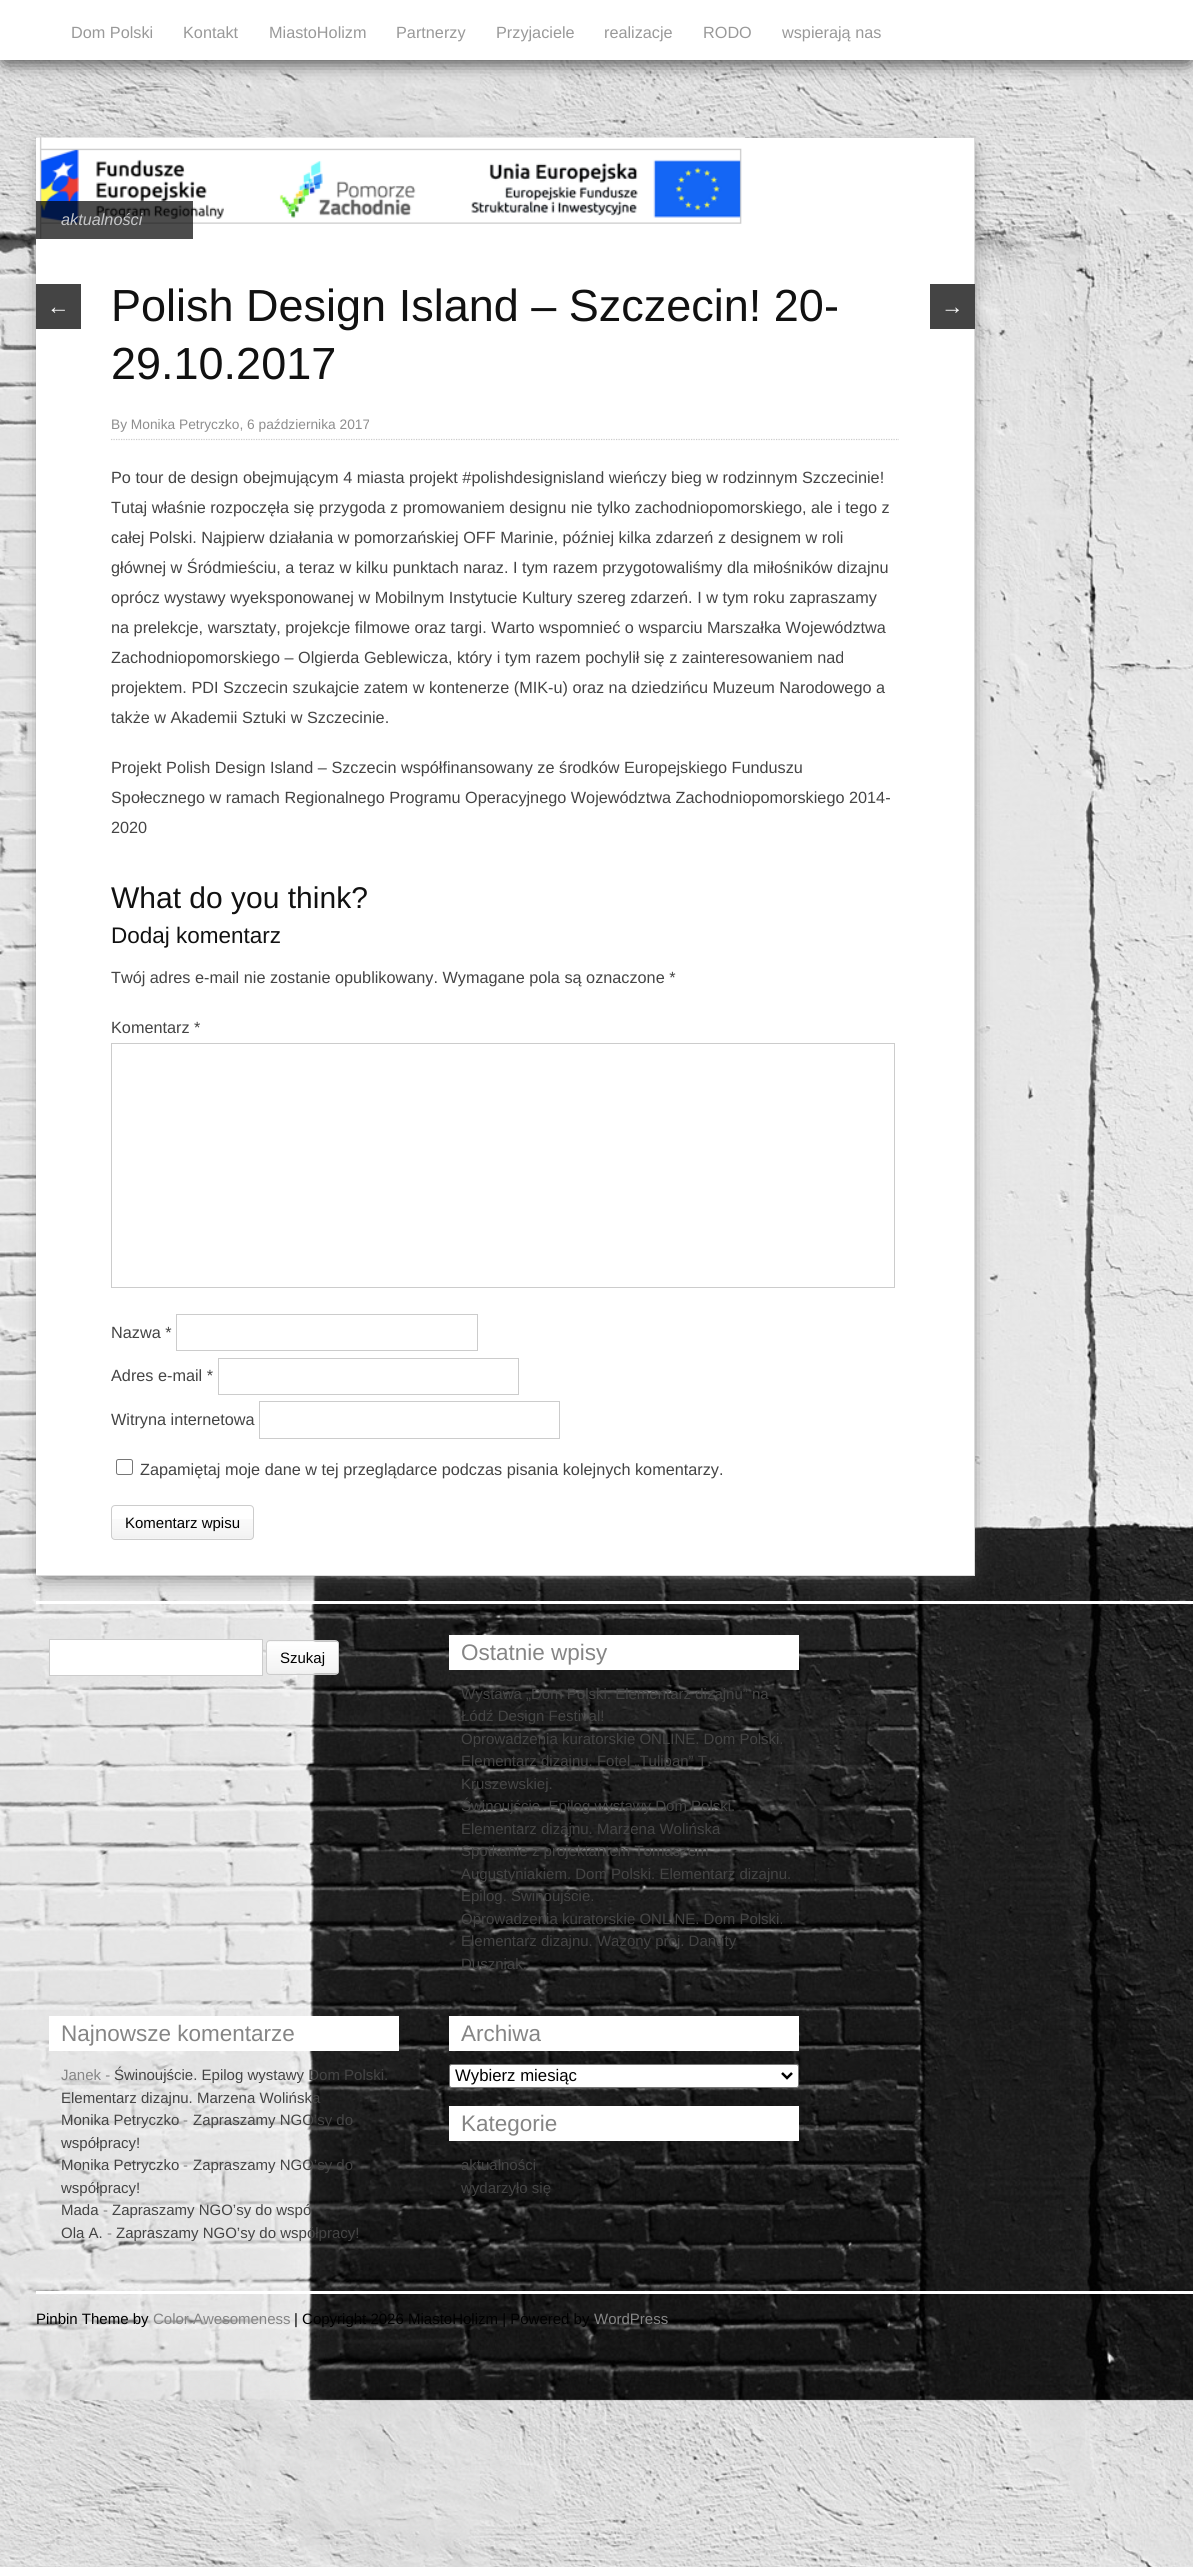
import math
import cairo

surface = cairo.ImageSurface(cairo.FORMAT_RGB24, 1193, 2567)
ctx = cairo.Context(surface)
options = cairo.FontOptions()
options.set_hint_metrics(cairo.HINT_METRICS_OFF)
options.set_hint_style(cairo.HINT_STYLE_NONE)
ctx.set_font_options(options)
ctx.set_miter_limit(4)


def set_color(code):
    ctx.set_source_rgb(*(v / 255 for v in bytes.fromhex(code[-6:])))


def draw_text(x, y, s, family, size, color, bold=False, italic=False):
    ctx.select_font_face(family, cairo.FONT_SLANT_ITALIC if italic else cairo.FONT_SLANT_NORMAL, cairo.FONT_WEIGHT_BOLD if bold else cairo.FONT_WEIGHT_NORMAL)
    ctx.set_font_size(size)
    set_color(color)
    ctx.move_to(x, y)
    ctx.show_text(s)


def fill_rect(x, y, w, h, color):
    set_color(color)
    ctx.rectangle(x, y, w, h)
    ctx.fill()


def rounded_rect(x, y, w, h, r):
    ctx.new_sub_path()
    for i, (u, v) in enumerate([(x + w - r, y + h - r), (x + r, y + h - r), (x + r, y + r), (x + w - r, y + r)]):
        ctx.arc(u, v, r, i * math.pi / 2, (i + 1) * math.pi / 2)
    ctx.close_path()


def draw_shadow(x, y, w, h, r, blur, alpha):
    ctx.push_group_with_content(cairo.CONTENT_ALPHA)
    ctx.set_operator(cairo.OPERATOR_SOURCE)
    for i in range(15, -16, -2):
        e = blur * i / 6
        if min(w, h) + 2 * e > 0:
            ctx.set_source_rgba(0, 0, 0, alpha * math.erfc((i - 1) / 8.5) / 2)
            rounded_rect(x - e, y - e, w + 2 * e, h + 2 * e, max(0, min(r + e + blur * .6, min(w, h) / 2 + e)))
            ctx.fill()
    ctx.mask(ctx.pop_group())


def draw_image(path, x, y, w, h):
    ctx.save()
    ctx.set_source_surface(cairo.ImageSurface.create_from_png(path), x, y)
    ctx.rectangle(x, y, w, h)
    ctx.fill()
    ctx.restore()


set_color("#ffffff")
ctx.paint()
draw_image("assets/img1.png", 0, 60, 1193, 2507)
set_color("#555555")
draw_shadow(6, 11, 1182, 48, 0, 9.5, 1)
draw_shadow(6, 11, 1182, 48, 0, 9.5, 1)
fill_rect(0, 0, 1193, 60, "#ffffff")
draw_text(71, 38, "Dom Polski", "Liberation Sans", 16.25, "#999999")
draw_text(183, 38, "Kontakt", "Liberation Sans", 16.25, "#999999")
draw_text(269, 38, "MiastoHolizm", "Liberation Sans", 16.25, "#999999")
draw_text(396, 38, "Partnerzy", "Liberation Sans", 16.25, "#999999")
draw_text(496, 38, "Przyjaciele", "Liberation Sans", 16.25, "#999999")
draw_text(604, 38, "realizacje", "Liberation Sans", 16.25, "#999999")
draw_text(703, 38, "RODO", "Liberation Sans", 16.25, "#999999")
draw_text(782, 38, "wspierają nas", "Liberation Sans", 16.25, "#999999")
fill_rect(36, 1601, 1157, 3, "#ffffff")
set_color("#555555")
draw_shadow(43, 149, 926, 1426, 0, 9.5, 1)
fill_rect(36, 138, 938, 1437, "#ffffff")
fill_rect(974, 138, 1, 1438, "#dbdbdb")
fill_rect(36, 1575, 939, 1, "#dbdbdb")
draw_image("assets/img2.png", 36, 137, 709, 102)
ctx.set_source_rgba(0, 0, 0, 0.7)
ctx.rectangle(36, 201, 157, 38)
ctx.fill()
draw_text(61, 225, "aktualności", "Liberation Sans", 16.25, "#c5c6c8", italic=True)
draw_text(111, 321, "Polish Design Island – Szczecin! 20-", "Liberation Sans", 45, "#111111")
draw_text(111, 379, "29.10.2017", "Liberation Sans", 45, "#111111")
ctx.new_path()
ctx.move_to(111, 439.5)
ctx.line_to(899, 439.5)
set_color("#cccccc")
ctx.set_line_width(1.2)
ctx.set_dash([1.25, 1.25])
ctx.stroke()
draw_text(111, 429, "By Monika Petryczko, 6 października 2017", "Liberation Sans", 13.75, "#8e8e8e")
draw_text(111, 483, "Po tour de design obejmującym 4 miasta projekt #polishdesignisland wieńczy bieg w rodzinnym Szczecinie!", "Liberation Sans", 16.25, "#444444")
draw_text(111, 513, "Tutaj właśnie rozpoczęła się przygoda z promowaniem designu nie tylko zachodniopomorskiego, ale i tego z", "Liberation Sans", 16.25, "#444444")
draw_text(111, 543, "całej Polski. Najpierw działania w pomorzańskiej OFF Marinie, później kilka zdarzeń z designem w roli", "Liberation Sans", 16.25, "#444444")
draw_text(111, 573, "głównej w Śródmieściu, a teraz w kilku punktach naraz. I tym razem przygotowaliśmy dla miłośników dizajnu", "Liberation Sans", 16.25, "#444444")
draw_text(111, 603, "oprócz wystawy wyeksponowanej w Mobilnym Instytucie Kultury szereg zdarzeń. I w tym roku zapraszamy", "Liberation Sans", 16.25, "#444444")
draw_text(111, 633, "na prelekcje, warsztaty, projekcje filmowe oraz targi. Warto wspomnieć o wsparciu Marszałka Województwa", "Liberation Sans", 16.25, "#444444")
draw_text(111, 663, "Zachodniopomorskiego – Olgierda Geblewicza, który i tym razem pochylił się z zainteresowaniem nad", "Liberation Sans", 16.25, "#444444")
draw_text(111, 693, "projektem. PDI Szczecin szukajcie zatem w kontenerze (MIK-u) oraz na dziedzińcu Muzeum Narodowego a", "Liberation Sans", 16.25, "#444444")
draw_text(111, 723, "także w Akademii Sztuki w Szczecinie.", "Liberation Sans", 16.25, "#444444")
draw_text(111, 773, "Projekt Polish Design Island – Szczecin współfinansowany ze środków Europejskiego Funduszu", "Liberation Sans", 16.25, "#444444")
draw_text(111, 803, "Społecznego w ramach Regionalnego Programu Operacyjnego Województwa Zachodniopomorskiego 2014-", "Liberation Sans", 16.25, "#444444")
draw_text(111, 833, "2020", "Liberation Sans", 16.25, "#444444")
draw_text(111, 908, "What do you think?", "Liberation Sans", 30, "#111111")
draw_text(111, 943, "Dodaj komentarz", "Liberation Sans", 22.5, "#111111")
draw_text(111, 983, "Twój adres e-mail nie zostanie opublikowany. Wymagane pola są oznaczone *", "Liberation Sans", 16.25, "#444444")
draw_text(111, 1033, "Komentarz *", "Liberation Sans", 16.25, "#444444")
ctx.rectangle(111.5, 1043.5, 783, 244)
set_color("#cccccc")
ctx.set_line_width(1)
ctx.set_dash([])
ctx.stroke()
draw_text(111, 1338, "Nazwa *", "Liberation Sans", 16.25, "#444444")
ctx.rectangle(176.5, 1314.5, 301, 36)
set_color("#cccccc")
ctx.stroke()
draw_text(111, 1381, "Adres e-mail *", "Liberation Sans", 16.25, "#444444")
ctx.rectangle(218.5, 1358.5, 300, 36)
set_color("#cccccc")
ctx.stroke()
draw_text(111, 1425, "Witryna internetowa", "Liberation Sans", 16.25, "#444444")
ctx.rectangle(259.5, 1401.5, 300, 37)
set_color("#cccccc")
ctx.stroke()
rounded_rect(116.5, 1459.5, 16, 15, 2)
set_color("#767676")
ctx.stroke()
draw_text(140, 1475, "Zapamiętaj moje dane w tej przeglądarce podczas pisania kolejnych komentarzy.", "Liberation Sans", 16.25, "#444444")
draw_image("assets/img3.png", 111, 1519, 143, 20)
rounded_rect(111.5, 1505.5, 142, 34, 3.5)
set_color("#cccccc")
ctx.stroke()
draw_text(125, 1528, "Komentarz wpisu", "Liberation Sans", 15, "#000000")
fill_rect(36, 284, 45, 45, "#444444")
draw_text(47, 314, "←", "Liberation Sans", 22.5, "#fafafa")
fill_rect(930, 284, 45, 45, "#444444")
draw_text(941, 314, "→", "Liberation Sans", 22.5, "#fafafa")
set_color("#ffffff")
ctx.rectangle(49.5, 1639.5, 213, 36)
ctx.fill_preserve()
set_color("#cccccc")
ctx.stroke()
draw_image("assets/img4.png", 266, 1641, 73, 33)
rounded_rect(266.5, 1640.5, 72, 34, 3.5)
ctx.stroke()
draw_text(280, 1663, "Szukaj", "Liberation Sans", 15, "#000000")
fill_rect(449, 1635, 350, 35, "#ffffff")
draw_text(461, 1660, "Ostatnie wpisy", "Liberation Sans", 22.5, "#858585")
draw_text(461, 1699, "Wystawa „Dom Polski. Elementarz dizajnu” na", "Liberation Sans", 15, "#444444")
draw_text(461, 1721, "Łódź Design Festival!", "Liberation Sans", 15, "#444444")
draw_text(461, 1744, "Oprowadzenia kuratorskie ONLINE. Dom Polski.", "Liberation Sans", 15, "#444444")
draw_text(461, 1766, "Elementarz dizajnu. Fotel „Tulipan” T.", "Liberation Sans", 15, "#444444")
draw_text(461, 1789, "Kruszewskiej.", "Liberation Sans", 15, "#444444")
draw_text(461, 1811, "Świnoujście. Epilog wystawy Dom Polski.", "Liberation Sans", 15, "#444444")
draw_text(461, 1834, "Elementarz dizajnu. Marzena Wolińska", "Liberation Sans", 15, "#444444")
draw_text(461, 1856, "Spotkanie z projektantem Tomaszem", "Liberation Sans", 15, "#444444")
draw_text(461, 1879, "Augustyniakiem. Dom Polski. Elementarz dizajnu.", "Liberation Sans", 15, "#444444")
draw_text(461, 1901, "Epilog. Świnoujście.", "Liberation Sans", 15, "#444444")
draw_text(461, 1924, "Oprowadzenia kuratorskie ONLINE. Dom Polski.", "Liberation Sans", 15, "#444444")
draw_text(461, 1946, "Elementarz dizajnu. Wazony proj. Danuty", "Liberation Sans", 15, "#444444")
draw_text(461, 1969, "Duszniak.", "Liberation Sans", 15, "#444444")
fill_rect(49, 2016, 350, 35, "#ffffff")
draw_text(61, 2041, "Najnowsze komentarze", "Liberation Sans", 22.5, "#858585")
draw_text(61, 2080, "Janek -", "Liberation Sans", 15, "#858585")
draw_text(114, 2080, "Świnoujście. Epilog wystawy Dom Polski.", "Liberation Sans", 15, "#444444")
draw_text(61, 2103, "Elementarz dizajnu. Marzena Wolińska", "Liberation Sans", 15, "#444444")
draw_text(61, 2125, "Monika Petryczko", "Liberation Sans", 15, "#444444")
draw_text(183, 2125, "-", "Liberation Sans", 15, "#858585")
draw_text(193, 2125, "Zapraszamy NGO’sy do", "Liberation Sans", 15, "#444444")
draw_text(61, 2148, "współpracy!", "Liberation Sans", 15, "#444444")
draw_text(61, 2170, "Monika Petryczko", "Liberation Sans", 15, "#444444")
draw_text(183, 2170, "-", "Liberation Sans", 15, "#858585")
draw_text(193, 2170, "Zapraszamy NGO’sy do", "Liberation Sans", 15, "#444444")
draw_text(61, 2193, "współpracy!", "Liberation Sans", 15, "#444444")
draw_text(61, 2215, "Mada", "Liberation Sans", 15, "#444444")
draw_text(103, 2215, "-", "Liberation Sans", 15, "#858585")
draw_text(112, 2215, "Zapraszamy NGO’sy do wspó", "Liberation Sans", 15, "#444444")
draw_text(61, 2238, "Ola A.", "Liberation Sans", 15, "#444444")
draw_text(107, 2238, "-", "Liberation Sans", 15, "#858585")
draw_text(116, 2238, "Zapraszamy NGO’sy do współpracy!", "Liberation Sans", 15, "#444444")
fill_rect(449, 2016, 350, 35, "#ffffff")
draw_text(461, 2041, "Archiwa", "Liberation Sans", 22.5, "#858585")
set_color("#ffffff")
rounded_rect(449.5, 2064.5, 349, 23, 2)
ctx.fill_preserve()
set_color("#767676")
ctx.stroke()
ctx.new_path()
ctx.move_to(782, 2073)
ctx.line_to(787, 2078)
ctx.line_to(792, 2073)
set_color("#000000")
ctx.set_line_width(2.5)
ctx.stroke()
draw_text(455, 2081, "Wybierz miesiąc", "Liberation Sans", 16.75, "#000000")
fill_rect(449, 2106, 350, 35, "#ffffff")
draw_text(461, 2131, "Kategorie", "Liberation Sans", 22.5, "#858585")
draw_text(461, 2170, "aktualności", "Liberation Sans", 15, "#444444")
draw_text(461, 2193, "wydarzyło się", "Liberation Sans", 15, "#444444")
fill_rect(36, 2291, 1157, 3, "#ffffff")
draw_text(36, 2324, "Pinbin Theme by", "Liberation Sans", 15, "#000000")
draw_text(153, 2324, "Color Awesomeness", "Liberation Sans", 15, "#858585")
draw_text(294, 2324, "| Copyright 2026 MiastoHolizm | Powered by", "Liberation Sans", 15, "#000000")
draw_text(594, 2324, "WordPress", "Liberation Sans", 15, "#858585")
surface.write_to_png("output.png")
